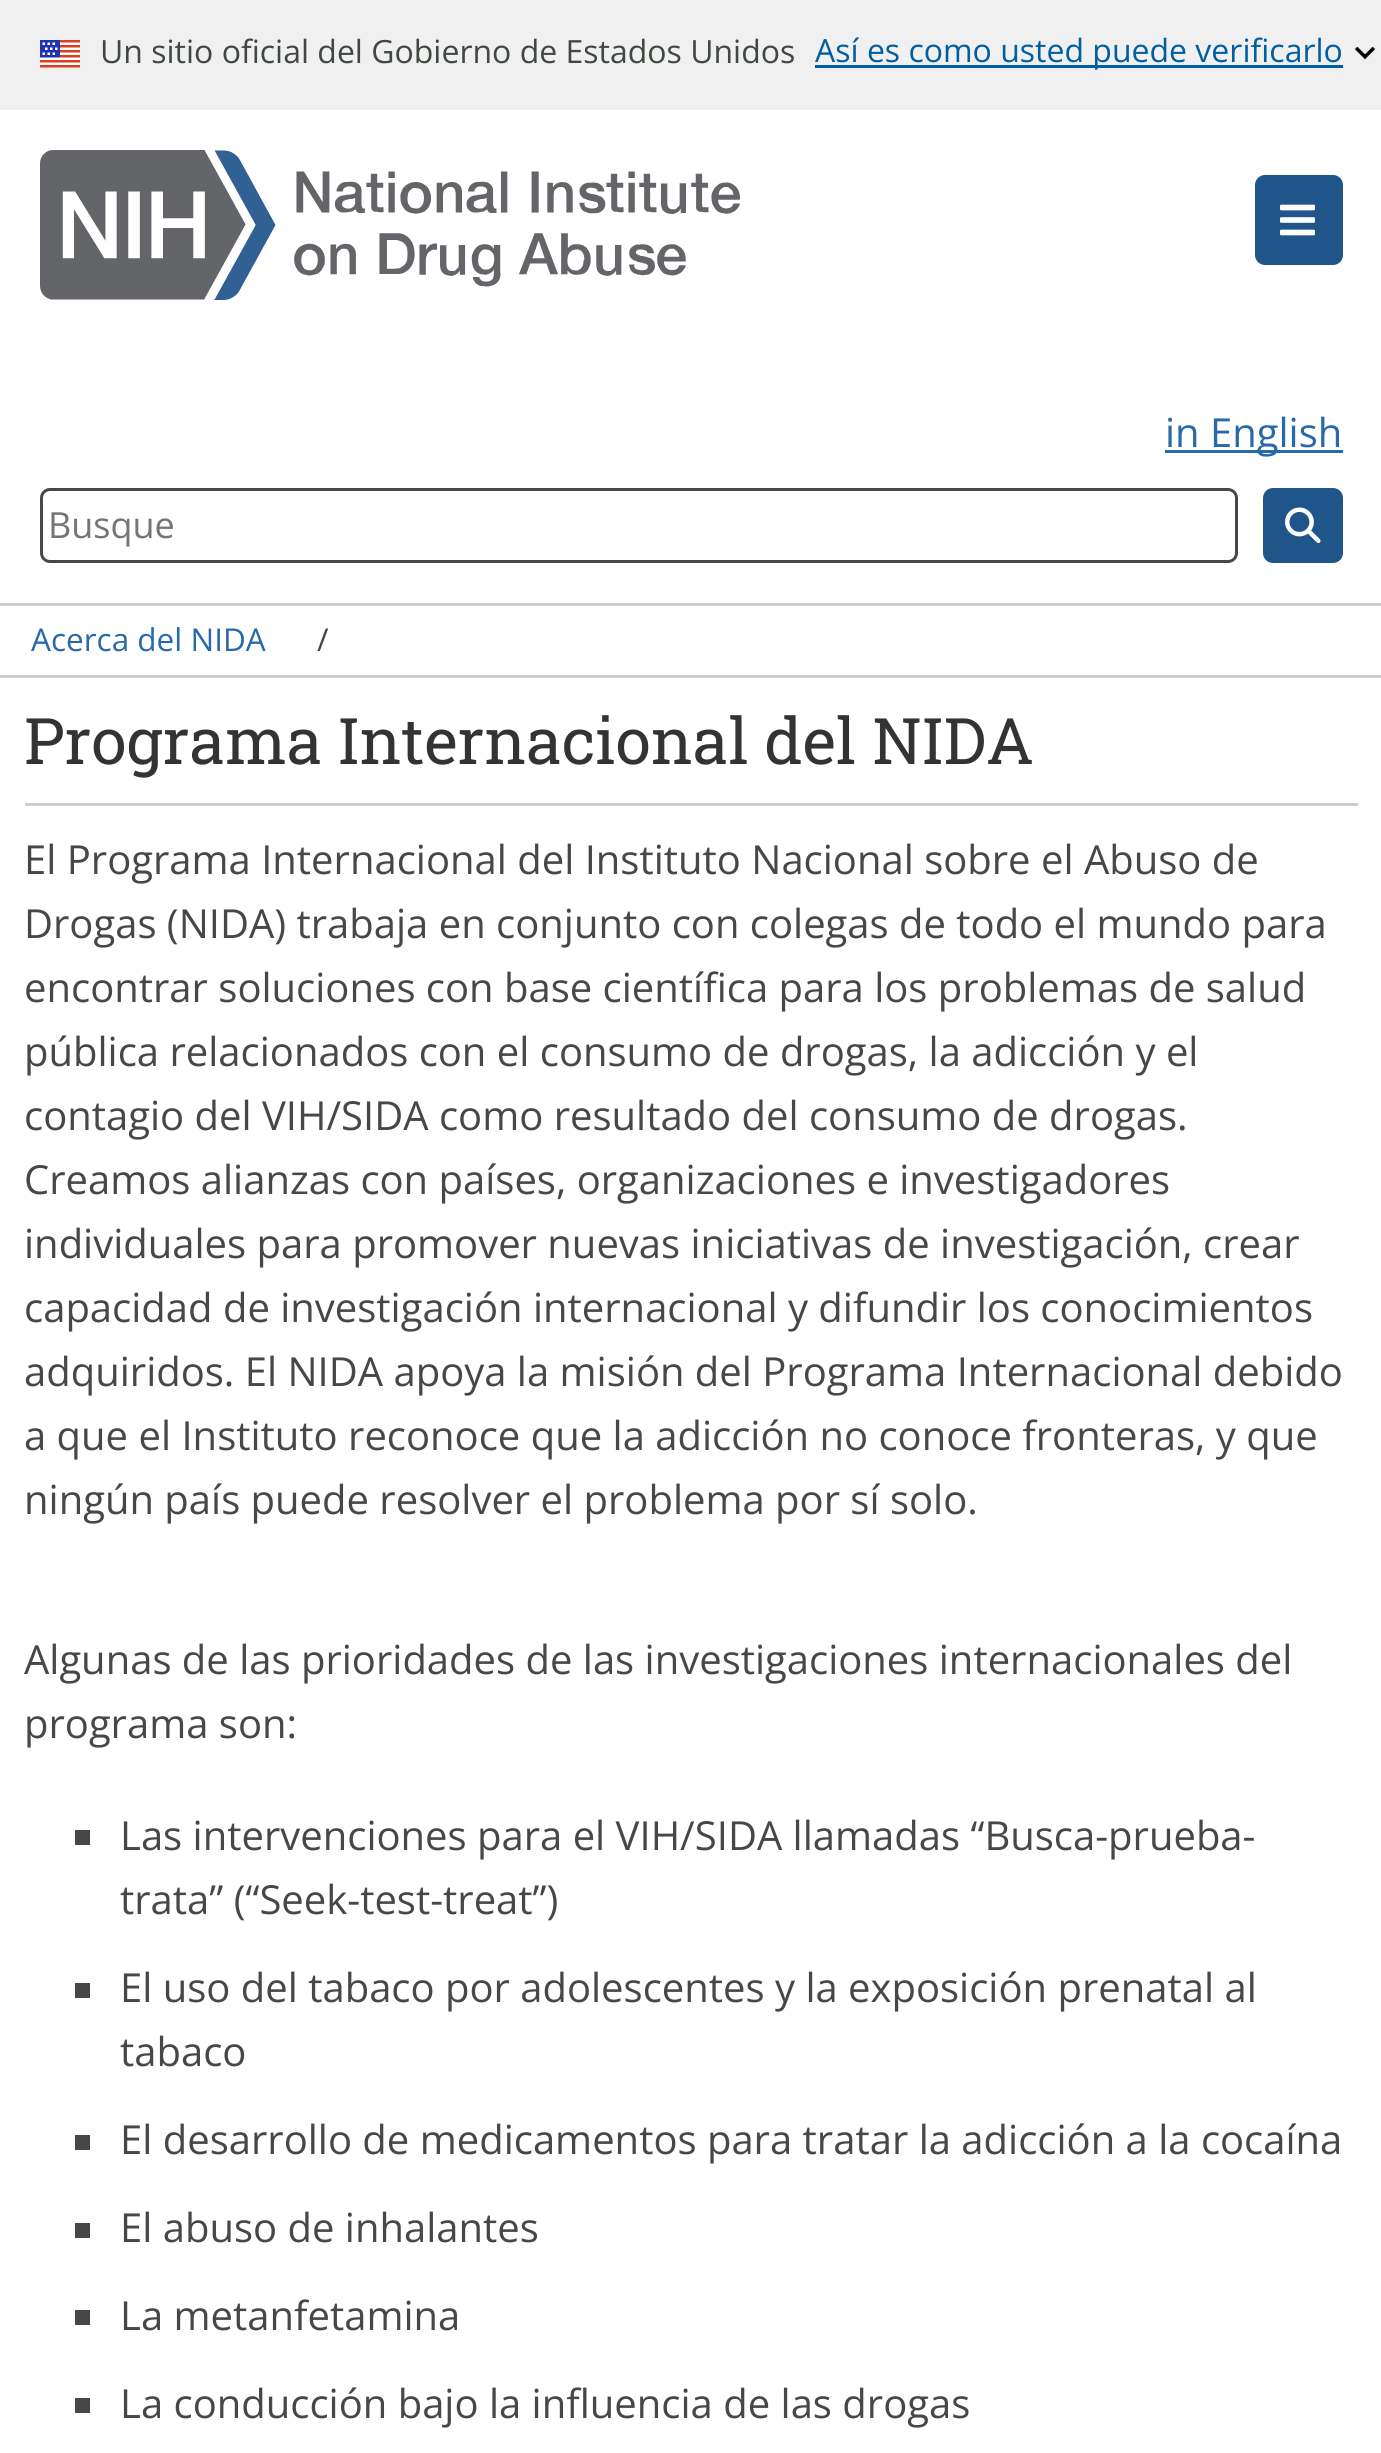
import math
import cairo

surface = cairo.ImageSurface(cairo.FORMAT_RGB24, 1381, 2453)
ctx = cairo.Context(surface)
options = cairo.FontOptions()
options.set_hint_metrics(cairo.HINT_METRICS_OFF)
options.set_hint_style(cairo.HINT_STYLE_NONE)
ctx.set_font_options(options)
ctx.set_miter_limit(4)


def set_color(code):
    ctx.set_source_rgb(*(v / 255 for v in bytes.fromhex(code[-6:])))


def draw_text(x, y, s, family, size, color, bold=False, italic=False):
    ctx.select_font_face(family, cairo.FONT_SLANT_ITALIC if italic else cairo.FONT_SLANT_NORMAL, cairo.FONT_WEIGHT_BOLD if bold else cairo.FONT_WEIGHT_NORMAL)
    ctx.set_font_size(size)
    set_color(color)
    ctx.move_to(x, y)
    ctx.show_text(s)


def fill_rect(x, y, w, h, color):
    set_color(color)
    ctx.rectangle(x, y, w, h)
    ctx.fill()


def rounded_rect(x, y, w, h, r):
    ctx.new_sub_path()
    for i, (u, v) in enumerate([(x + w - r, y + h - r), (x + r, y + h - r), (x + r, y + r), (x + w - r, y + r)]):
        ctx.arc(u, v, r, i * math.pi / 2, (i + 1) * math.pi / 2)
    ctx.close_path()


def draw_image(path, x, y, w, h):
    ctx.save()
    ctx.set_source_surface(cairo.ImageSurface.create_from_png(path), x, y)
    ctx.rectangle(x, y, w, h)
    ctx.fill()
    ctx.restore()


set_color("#ffffff")
ctx.paint()
fill_rect(0, 0, 1381, 110, "#f0f0f0")
draw_image("assets/img1.png", 40, 40, 40, 28)
draw_text(100, 63, "Un sitio oficial del Gobierno de Estados Unidos", "Open Sans", 32, "#414841")
fill_rect(815, 65, 528, 3, "#005ea2")
draw_text(815, 62, "Así es como usted puede verificarlo", "Open Sans", 32, "#005ea2")
draw_image("assets/img2.png", 1354, 46, 22, 14)
draw_image("assets/img3.png", 40, 150, 700, 150)
set_color("#20558a")
rounded_rect(1256.5, 176.5, 85, 87, 8.5)
ctx.fill_preserve()
ctx.set_line_width(3)
ctx.stroke()
draw_image("assets/img4.png", 1280, 204, 35, 32)
fill_rect(1165, 450, 178, 3, "#2869ab")
draw_text(1165, 447, "in English", "Open Sans", 40, "#2869ab")
rounded_rect(41.5, 489.5, 1195, 72, 8.5)
set_color("#474747")
ctx.stroke()
draw_text(48, 538, "Busque", "Open Sans", 36, "#757575")
set_color("#20558a")
rounded_rect(1264.5, 489.5, 77, 72, 8.5)
ctx.fill_preserve()
ctx.stroke()
draw_image("assets/img5.png", 1285, 507, 36, 36)
fill_rect(0, 603, 1381, 3, "#cececa")
fill_rect(0, 675, 1381, 3, "#cececa")
draw_text(31, 651, "Acerca del NIDA", "Open Sans", 31.5, "#2869ab")
draw_text(317, 651, "/", "Open Sans", 31.5, "#474747")
fill_rect(25, 803, 1333, 3, "#cececa")
draw_text(24, 764, "Programa Internacional del NIDA", "Roboto Slab", 64.1, "#333333")
draw_text(24, 874, "El Programa Internacional del Instituto Nacional sobre el Abuso de", "Open Sans", 40, "#474747")
draw_text(24, 938, "Drogas (NIDA) trabaja en conjunto con colegas de todo el mundo para", "Open Sans", 40, "#474747")
draw_text(24, 1002, "encontrar soluciones con base científica para los problemas de salud", "Open Sans", 40, "#474747")
draw_text(24, 1066, "pública relacionados con el consumo de drogas, la adicción y el", "Open Sans", 40, "#474747")
draw_text(24, 1130, "contagio del VIH/SIDA como resultado del consumo de drogas.", "Open Sans", 40, "#474747")
draw_text(24, 1194, "Creamos alianzas con países, organizaciones e investigadores", "Open Sans", 40, "#474747")
draw_text(24, 1258, "individuales para promover nuevas iniciativas de investigación, crear", "Open Sans", 40, "#474747")
draw_text(24, 1322, "capacidad de investigación internacional y difundir los conocimientos", "Open Sans", 40, "#474747")
draw_text(24, 1386, "adquiridos. El NIDA apoya la misión del Programa Internacional debido", "Open Sans", 40, "#474747")
draw_text(24, 1450, "a que el Instituto reconoce que la adicción no conoce fronteras, y que", "Open Sans", 40, "#474747")
draw_text(24, 1514, "ningún país puede resolver el problema por sí solo.", "Open Sans", 40, "#474747")
draw_text(24, 1674, "Algunas de las prioridades de las investigaciones internacionales del", "Open Sans", 40, "#474747")
draw_text(24, 1738, "programa son:", "Open Sans", 40, "#474747")
fill_rect(75, 1830, 15, 15, "#474747")
draw_text(120, 1850, "Las intervenciones para el VIH/SIDA llamadas “Busca-prueba-", "Open Sans", 40, "#474747")
draw_text(120, 1914, "trata” (“Seek-test-treat”)", "Open Sans", 40, "#474747")
fill_rect(75, 1983, 15, 15, "#474747")
draw_text(120, 2002, "El uso del tabaco por adolescentes y la exposición prenatal al", "Open Sans", 40, "#474747")
draw_text(120, 2066, "tabaco", "Open Sans", 40, "#474747")
fill_rect(75, 2135, 15, 15, "#474747")
draw_text(120, 2154, "El desarrollo de medicamentos para tratar la adicción a la cocaína", "Open Sans", 40, "#474747")
fill_rect(75, 2223, 15, 15, "#474747")
draw_text(120, 2242, "El abuso de inhalantes", "Open Sans", 40, "#474747")
fill_rect(75, 2310, 15, 15, "#474747")
draw_text(120, 2330, "La metanfetamina", "Open Sans", 40, "#474747")
fill_rect(75, 2398, 15, 15, "#474747")
draw_text(120, 2418, "La conducción bajo la influencia de las drogas", "Open Sans", 40, "#474747")
surface.write_to_png("output.png")
